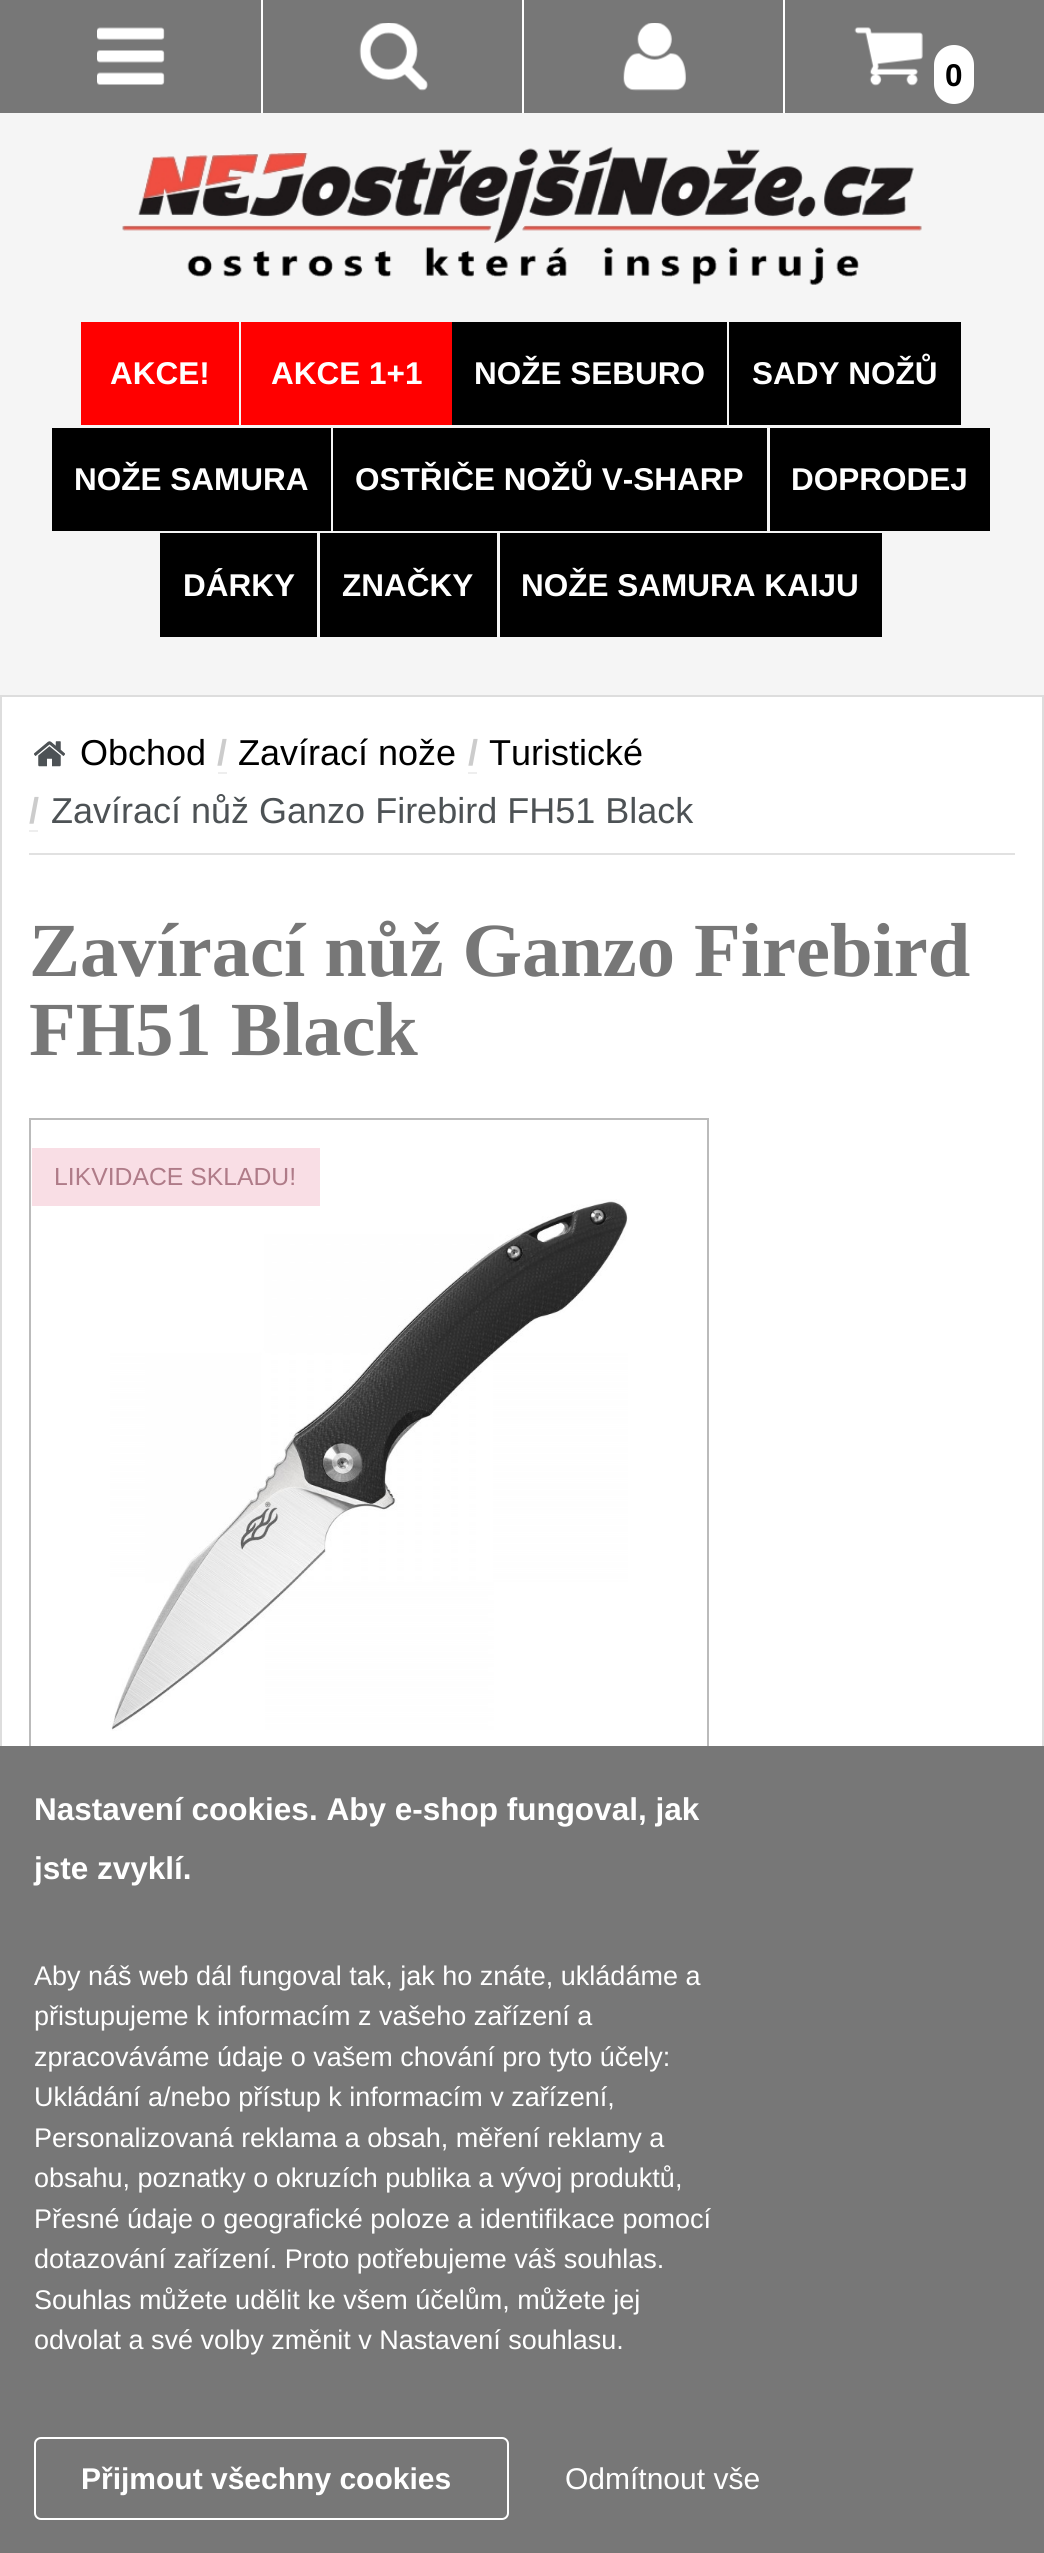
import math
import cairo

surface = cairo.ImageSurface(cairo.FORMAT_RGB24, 1044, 2553)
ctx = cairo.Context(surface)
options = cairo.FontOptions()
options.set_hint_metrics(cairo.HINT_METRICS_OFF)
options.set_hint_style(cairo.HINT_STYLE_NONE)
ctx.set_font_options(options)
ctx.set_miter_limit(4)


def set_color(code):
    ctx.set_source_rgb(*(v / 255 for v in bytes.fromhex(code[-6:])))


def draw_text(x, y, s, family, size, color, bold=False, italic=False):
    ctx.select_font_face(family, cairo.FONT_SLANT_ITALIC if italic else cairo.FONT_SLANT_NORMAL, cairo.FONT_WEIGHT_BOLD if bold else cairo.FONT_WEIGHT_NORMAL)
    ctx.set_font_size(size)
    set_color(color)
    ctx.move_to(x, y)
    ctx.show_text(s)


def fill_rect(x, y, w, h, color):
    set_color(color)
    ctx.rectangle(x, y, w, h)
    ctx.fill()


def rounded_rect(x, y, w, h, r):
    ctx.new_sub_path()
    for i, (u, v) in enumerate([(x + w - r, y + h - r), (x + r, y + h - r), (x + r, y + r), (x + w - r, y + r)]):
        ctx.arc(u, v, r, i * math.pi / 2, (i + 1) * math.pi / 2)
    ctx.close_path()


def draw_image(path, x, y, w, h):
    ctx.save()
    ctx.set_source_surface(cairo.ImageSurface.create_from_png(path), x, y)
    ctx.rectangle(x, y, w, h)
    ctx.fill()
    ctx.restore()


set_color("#f5f5f5")
ctx.paint()
fill_rect(0, 0, 1044, 113, "#777777")
draw_image("assets/img1.png", 97, 27, 68, 58)
fill_rect(261, 0, 2, 113, "#ffffff")
draw_image("assets/img2.png", 359, 23, 69, 68)
fill_rect(522, 0, 2, 113, "#ffffff")
draw_image("assets/img3.png", 623, 23, 63, 68)
fill_rect(783, 0, 2, 113, "#ffffff")
draw_image("assets/img4.png", 854, 27, 69, 59)
rounded_rect(934, 45, 40, 59, 20)
ctx.fill()
draw_text(945, 86, "0", "Liberation Sans", 31.5, "#000000", bold=True)
draw_image("assets/img5.png", 122, 146, 800, 139)
fill_rect(81, 322, 158, 103, "#ff0000")
draw_text(110, 384, "AKCE!", "Liberation Sans", 31.5, "#ffffff", bold=True)
fill_rect(241, 322, 211, 103, "#ff0000")
draw_text(271, 384, "AKCE 1+1", "Liberation Sans", 31.5, "#ffffff", bold=True)
fill_rect(452, 322, 275, 103, "#000000")
draw_text(474, 384, "NOŽE SEBURO", "Liberation Sans", 31.5, "#ffffff", bold=True)
fill_rect(729, 322, 232, 103, "#000000")
draw_text(752, 384, "SADY NOŽŮ", "Liberation Sans", 31.5, "#ffffff", bold=True)
fill_rect(52, 428, 279, 103, "#000000")
draw_text(74, 490, "NOŽE SAMURA", "Liberation Sans", 31.5, "#ffffff", bold=True)
fill_rect(333, 428, 434, 103, "#000000")
draw_text(355, 490, "OSTŘIČE NOŽŮ V-SHARP", "Liberation Sans", 31.5, "#ffffff", bold=True)
fill_rect(770, 428, 220, 103, "#000000")
draw_text(791, 490, "DOPRODEJ", "Liberation Sans", 31.5, "#ffffff", bold=True)
fill_rect(160, 533, 157, 104, "#000000")
draw_text(183, 596, "DÁRKY", "Liberation Sans", 31.5, "#ffffff", bold=True)
fill_rect(320, 533, 177, 104, "#000000")
draw_text(342, 596, "ZNAČKY", "Liberation Sans", 31.5, "#ffffff", bold=True)
fill_rect(500, 533, 382, 104, "#000000")
draw_text(521, 596, "NOŽE SAMURA KAIJU", "Liberation Sans", 31.5, "#ffffff", bold=True)
fill_rect(2, 697, 1040, 1049, "#ffffff")
ctx.rectangle(1, 696, 1042, 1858)
set_color("#dddddd")
ctx.stroke()
draw_image("assets/img6.png", 34, 741, 31, 26)
draw_text(80, 765, "Obchod", "Liberation Sans", 36, "#000000")
draw_text(217, 765, "/", "Liberation Sans", 36, "#cccccc", bold=True)
fill_rect(218, 772, 9, 2, "#eeeeee")
draw_text(238, 765, "Zavírací nože", "Liberation Sans", 36, "#000000")
draw_text(468, 765, "/", "Liberation Sans", 36, "#cccccc", bold=True)
fill_rect(468, 772, 9, 2, "#eeeeee")
draw_text(489, 765, "Turistické", "Liberation Sans", 36, "#000000")
draw_text(29, 823, "/", "Liberation Sans", 36, "#cccccc", bold=True)
fill_rect(29, 830, 9, 2, "#eeeeee")
draw_text(51, 823, "Zavírací nůž Ganzo Firebird FH51 Black", "Liberation Sans", 36, "#4d5255")
fill_rect(29, 853, 986, 2, "#e1e1e1")
draw_text(29, 976, "Zavírací nůž Ganzo Firebird", "Liberation Serif", 76.5, "#777777", bold=True)
draw_text(29, 1055, "FH51 Black", "Liberation Serif", 76.5, "#777777", bold=True)
ctx.rectangle(30, 1119, 678, 678)
set_color("#bbbbbb")
ctx.stroke()
draw_image("assets/img7.png", 110, 1199, 518, 532)
fill_rect(32, 1148, 288, 58, "#f9dee5")
draw_text(54, 1185, "LIKVIDACE SKLADU!", "Liberation Sans", 24.75, "#af7b88")
fill_rect(0, 1746, 1044, 807, "#777777")
draw_text(34, 1820, "Nastavení cookies. Aby e-shop fungoval, jak", "Liberation Sans", 31.5, "#ffffff", bold=True)
draw_text(34, 1879, "jste zvyklí.", "Liberation Sans", 31.5, "#ffffff", bold=True)
draw_text(34, 1985, "Aby náš web dál fungoval tak, jak ho znáte, ukládáme a", "Liberation Sans", 27, "#ffffff")
draw_text(34, 2025, "přistupujeme k informacím z vašeho zařízení a", "Liberation Sans", 27, "#ffffff")
draw_text(34, 2066, "zpracováváme údaje o vašem chování pro tyto účely:", "Liberation Sans", 27, "#ffffff")
draw_text(34, 2106, "Ukládání a/nebo přístup k informacím v zařízení,", "Liberation Sans", 27, "#ffffff")
draw_text(34, 2147, "Personalizovaná reklama a obsah, měření reklamy a", "Liberation Sans", 27, "#ffffff")
draw_text(34, 2187, "obsahu, poznatky o okruzích publika a vývoj produktů,", "Liberation Sans", 27, "#ffffff")
draw_text(34, 2228, "Přesné údaje o geografické poloze a identifikace pomocí", "Liberation Sans", 27, "#ffffff")
draw_text(34, 2268, "dotazování zařízení. Proto potřebujeme váš souhlas.", "Liberation Sans", 27, "#ffffff")
draw_text(34, 2309, "Souhlas můžete udělit ke všem účelům, můžete jej", "Liberation Sans", 27, "#ffffff")
draw_text(34, 2349, "odvolat a své volby změnit v Nastavení souhlasu.", "Liberation Sans", 27, "#ffffff")
rounded_rect(35, 2438, 473, 81, 6)
ctx.stroke()
draw_text(81, 2489, "Přijmout všechny cookies", "Liberation Sans", 30, "#ffffff", bold=True)
draw_text(565, 2489, "Odmítnout vše", "Liberation Sans", 30, "#ffffff")
surface.write_to_png("output.png")
